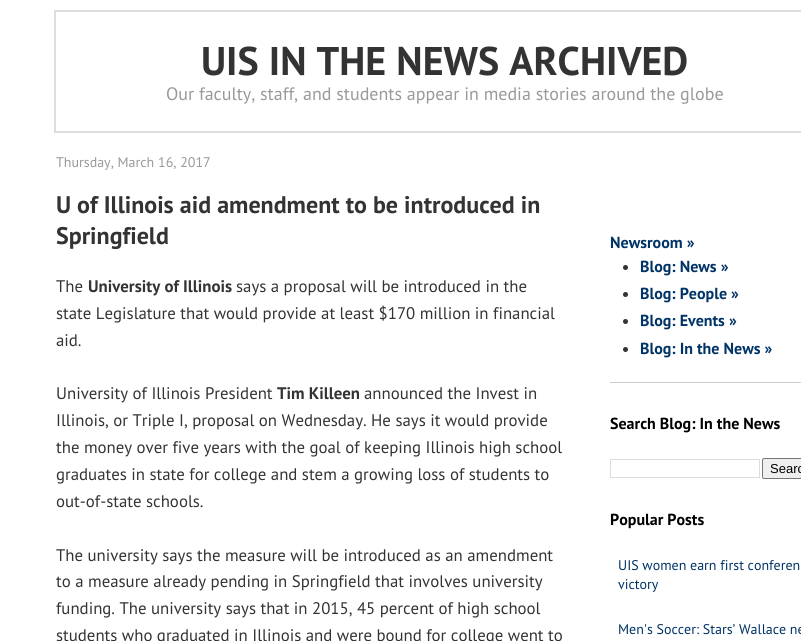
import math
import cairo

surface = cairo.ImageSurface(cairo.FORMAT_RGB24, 801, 641)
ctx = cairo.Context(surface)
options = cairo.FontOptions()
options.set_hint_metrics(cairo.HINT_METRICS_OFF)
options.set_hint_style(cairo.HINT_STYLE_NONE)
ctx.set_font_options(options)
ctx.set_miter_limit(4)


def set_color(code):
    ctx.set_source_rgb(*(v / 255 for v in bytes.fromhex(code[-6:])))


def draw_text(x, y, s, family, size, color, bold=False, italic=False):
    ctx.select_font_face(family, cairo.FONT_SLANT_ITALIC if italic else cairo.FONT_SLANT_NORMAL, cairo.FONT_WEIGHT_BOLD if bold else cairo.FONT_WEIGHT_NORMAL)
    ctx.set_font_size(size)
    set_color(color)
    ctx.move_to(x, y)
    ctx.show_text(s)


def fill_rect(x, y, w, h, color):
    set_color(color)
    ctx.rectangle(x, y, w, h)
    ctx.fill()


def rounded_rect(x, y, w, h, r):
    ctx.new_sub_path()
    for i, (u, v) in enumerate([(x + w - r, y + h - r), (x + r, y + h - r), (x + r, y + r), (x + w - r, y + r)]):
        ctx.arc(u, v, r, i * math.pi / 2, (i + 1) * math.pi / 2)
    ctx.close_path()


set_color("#ffffff")
ctx.paint()
ctx.rectangle(55, 11, 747, 121)
set_color("#dddddd")
ctx.stroke()
draw_text(201, 75, "UIS IN THE NEWS ARCHIVED", "PT Sans", 40, "#333333", bold=True)
draw_text(166, 100, "Our faculty, staff, and students appear in media stories around the globe", "PT Sans", 18, "#999999")
draw_text(56, 167, "Thursday, March 16, 2017", "PT Sans", 14, "#999999")
draw_text(56, 213, "U of Illinois aid amendment to be introduced in", "PT Sans", 24, "#333333", bold=True)
draw_text(56, 244, "Springfield", "PT Sans", 24, "#333333", bold=True)
draw_text(56, 292, "The", "PT Sans", 16.8, "#333333")
draw_text(88, 292, "University of Illinois", "PT Sans", 16.8, "#333333", bold=True)
draw_text(236, 292, "says a proposal will be introduced in the", "PT Sans", 16.8, "#333333")
draw_text(56, 319, "state Legislature that would provide at least $170 million in financial", "PT Sans", 16.8, "#333333")
draw_text(56, 346, "aid.", "PT Sans", 16.8, "#333333")
draw_text(56, 399, "University of Illinois President", "PT Sans", 16.8, "#333333")
draw_text(277, 399, "Tim Killeen", "PT Sans", 16.8, "#333333", bold=True)
draw_text(364, 399, "announced the Invest in", "PT Sans", 16.8, "#333333")
draw_text(56, 426, "Illinois, or Triple I, proposal on Wednesday. He says it would provide", "PT Sans", 16.8, "#333333")
draw_text(56, 453, "the money over five years with the goal of keeping Illinois high school", "PT Sans", 16.8, "#333333")
draw_text(56, 480, "graduates in state for college and stem a growing loss of students to", "PT Sans", 16.8, "#333333")
draw_text(56, 507, "out-of-state schools.", "PT Sans", 16.8, "#333333")
draw_text(56, 561, "The university says the measure will be introduced as an amendment", "PT Sans", 16.8, "#333333")
draw_text(56, 587, "to a measure already pending in Springfield that involves university", "PT Sans", 16.8, "#333333")
draw_text(56, 614, "funding. The university says that in 2015, 45 percent of high school", "PT Sans", 16.8, "#333333")
draw_text(56, 641, "students who graduated in Illinois and were bound for college went to", "PT Sans", 16.8, "#333333")
draw_text(610, 248, "Newsroom »", "PT Sans", 16, "#003366", bold=True)
fill_rect(610, 382, 191, 1, "#cccccc")
set_color("#333333")
ctx.new_path()
ctx.arc(625.5, 267.5, 2.5, 0, 2 * math.pi)
ctx.fill()
draw_text(640, 272, "Blog: News »", "PT Sans", 16, "#003366", bold=True)
set_color("#333333")
ctx.new_path()
ctx.arc(625.5, 294.5, 2.5, 0, 2 * math.pi)
ctx.fill()
draw_text(640, 299, "Blog: People »", "PT Sans", 16, "#003366", bold=True)
set_color("#333333")
ctx.new_path()
ctx.arc(625.5, 321.5, 2.5, 0, 2 * math.pi)
ctx.fill()
draw_text(640, 326, "Blog: Events »", "PT Sans", 16, "#003366", bold=True)
set_color("#333333")
ctx.new_path()
ctx.arc(625.5, 349.5, 2.5, 0, 2 * math.pi)
ctx.fill()
draw_text(640, 354, "Blog: In the News »", "PT Sans", 16, "#003366", bold=True)
draw_text(610, 429, "Search Blog: In the News", "PT Sans", 16, "#000000", bold=True)
ctx.rectangle(610.5, 459.5, 149, 18)
set_color("#dddddd")
ctx.set_line_width(1)
ctx.stroke()
set_color("#efefef")
rounded_rect(762.5, 458.5, 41, 20, 1.5)
ctx.fill_preserve()
set_color("#767676")
ctx.stroke()
draw_text(770, 473, "Searc", "Liberation Sans", 13, "#000000")
draw_text(610, 525, "Popular Posts", "PT Sans", 16, "#000000", bold=True)
draw_text(618, 570, "UIS women earn first conferen", "PT Sans", 14, "#003366")
draw_text(618, 589, "victory", "PT Sans", 14, "#003366")
draw_text(618, 634, "Men's Soccer: Stars’ Wallace ne", "PT Sans", 14, "#003366")
surface.write_to_png("output.png")
